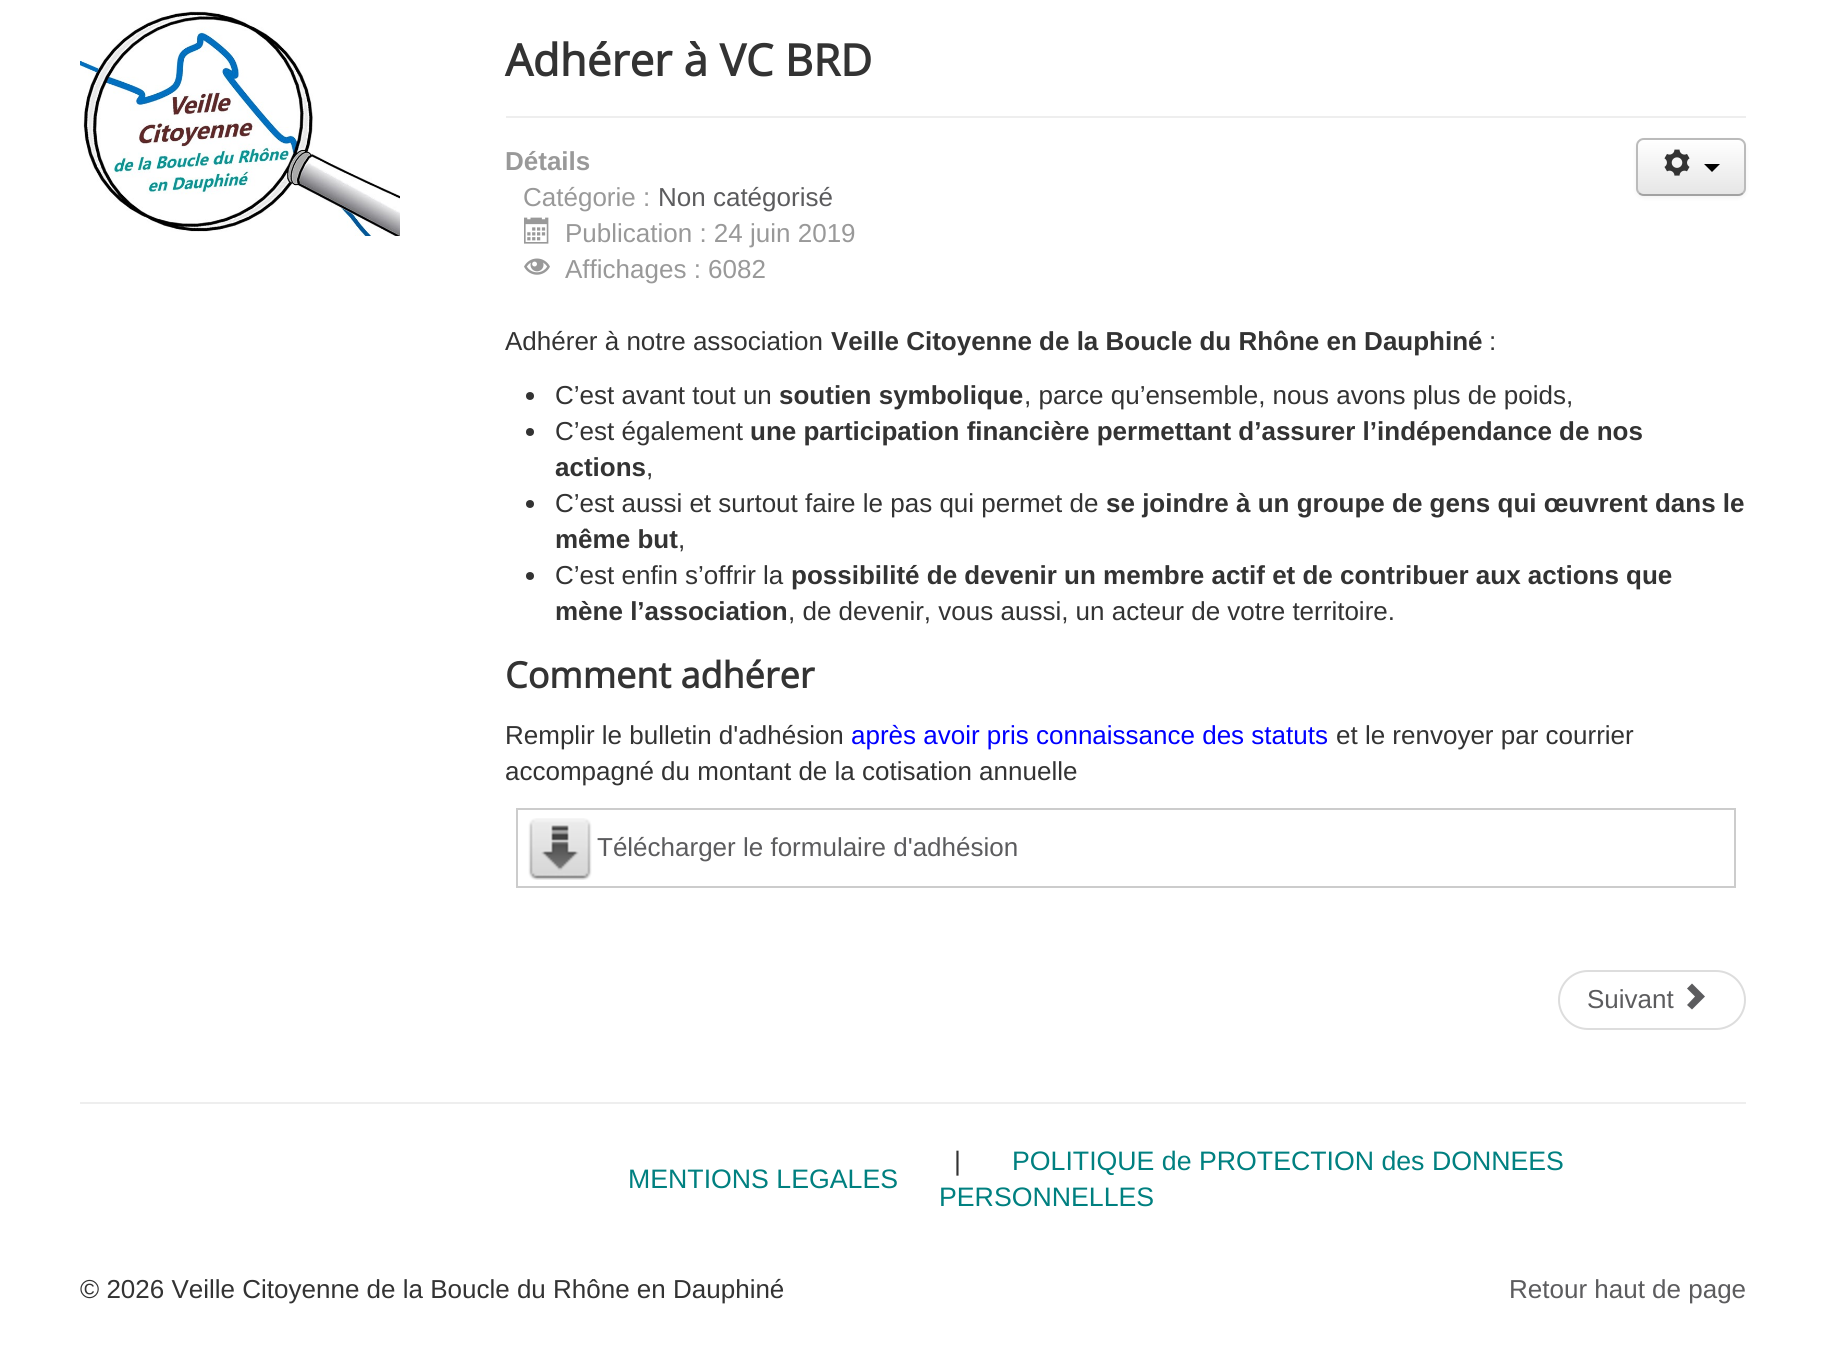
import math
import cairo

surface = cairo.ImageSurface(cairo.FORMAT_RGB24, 1826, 1353)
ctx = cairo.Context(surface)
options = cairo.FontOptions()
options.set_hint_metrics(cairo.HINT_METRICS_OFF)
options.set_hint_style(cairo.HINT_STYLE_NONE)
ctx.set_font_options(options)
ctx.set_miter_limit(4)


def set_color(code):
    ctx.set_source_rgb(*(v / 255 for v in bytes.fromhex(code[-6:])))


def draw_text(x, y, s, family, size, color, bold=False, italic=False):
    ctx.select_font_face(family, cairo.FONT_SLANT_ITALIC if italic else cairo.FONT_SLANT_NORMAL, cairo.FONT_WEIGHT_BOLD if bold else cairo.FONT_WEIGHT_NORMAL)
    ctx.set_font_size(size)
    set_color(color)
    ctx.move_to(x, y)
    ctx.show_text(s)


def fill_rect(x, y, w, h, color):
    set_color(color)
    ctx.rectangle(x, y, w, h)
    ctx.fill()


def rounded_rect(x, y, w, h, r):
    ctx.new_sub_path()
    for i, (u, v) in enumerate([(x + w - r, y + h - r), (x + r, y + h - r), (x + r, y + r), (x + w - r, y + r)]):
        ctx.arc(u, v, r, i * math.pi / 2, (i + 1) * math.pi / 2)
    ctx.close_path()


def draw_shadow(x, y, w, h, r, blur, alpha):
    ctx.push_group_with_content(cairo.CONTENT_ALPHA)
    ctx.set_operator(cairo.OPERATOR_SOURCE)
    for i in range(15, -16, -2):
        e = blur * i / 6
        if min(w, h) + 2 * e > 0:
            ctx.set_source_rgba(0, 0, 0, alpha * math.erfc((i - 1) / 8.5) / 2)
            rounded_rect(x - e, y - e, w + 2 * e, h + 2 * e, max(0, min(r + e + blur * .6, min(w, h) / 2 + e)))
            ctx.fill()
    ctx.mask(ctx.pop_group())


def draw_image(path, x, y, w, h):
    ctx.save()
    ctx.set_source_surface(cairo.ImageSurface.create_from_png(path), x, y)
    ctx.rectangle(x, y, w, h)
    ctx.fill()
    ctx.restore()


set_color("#ffffff")
ctx.paint()
draw_image("assets/img1.png", 80, 11, 320, 225)
fill_rect(506, 116, 1240, 2, "#eeeeee")
draw_text(505, 76, "Adhérer à VC BRD", "Open Sans", 44, "#333333", bold=True)
draw_text(505, 170, "Détails", "Liberation Sans", 26, "#999999", bold=True)
draw_text(523, 206, "Catégorie :", "Liberation Sans", 26, "#999999")
draw_text(658, 206, "Non catégorisé", "Liberation Sans", 26, "#5c5c5e")
draw_image("assets/img2.png", 524, 217, 25, 27)
draw_text(565, 242, "Publication : 24 juin 2019", "Liberation Sans", 26, "#999999")
draw_image("assets/img3.png", 524, 258, 26, 17)
draw_text(565, 278, "Affichages : 6082", "Liberation Sans", 26, "#999999")
set_color("#000000")
draw_shadow(1636, 140, 110, 58, 8, 2, 0.05)
ctx.save()
rounded_rect(1636, 138, 110, 58, 8)
ctx.clip()
gradient = cairo.LinearGradient(1691, 140, 1691, 194)
gradient.add_color_stop_rgba(0, 1, 1, 1, 1)
gradient.add_color_stop_rgba(1, 0.902, 0.902, 0.902, 1)
ctx.set_source(gradient)
ctx.rectangle(1636, 140, 110, 54)
ctx.fill()
ctx.restore()
ctx.new_path()
ctx.move_to(1743, 193)
ctx.curve_to(1741.5, 194.5, 1740, 195, 1738, 195)
ctx.line_to(1644, 195)
ctx.curve_to(1642, 195, 1640.5, 194.5, 1639, 193)
set_color("#a2a2a2")
ctx.stroke()
ctx.new_path()
ctx.move_to(1639, 193)
ctx.curve_to(1637.5, 191.5, 1637, 190, 1637, 188)
ctx.line_to(1637, 146)
ctx.curve_to(1637, 144, 1637.5, 142.5, 1639, 141)
ctx.curve_to(1640.5, 139.5, 1642, 139, 1644, 139)
ctx.line_to(1738, 139)
ctx.curve_to(1740, 139, 1741.5, 139.5, 1743, 141)
ctx.curve_to(1744.5, 142.5, 1745, 144, 1745, 146)
ctx.line_to(1745, 188)
ctx.curve_to(1745, 190, 1744.5, 191.5, 1743, 193)
set_color("#bbbbbb")
ctx.stroke()
draw_image("assets/img4.png", 1664, 149, 26, 27)
set_color("#000000")
ctx.new_path()
ctx.move_to(1704, 164)
ctx.line_to(1720, 164)
ctx.line_to(1712, 172)
ctx.close_path()
ctx.fill()
draw_text(505, 350, "Adhérer à notre association", "Liberation Sans", 26, "#333333")
draw_text(831, 350, "Veille Citoyenne de la Boucle du Rhône en Dauphiné", "Liberation Sans", 26, "#333333", bold=True)
draw_text(1489, 350, ":", "Liberation Sans", 26, "#333333")
ctx.new_path()
ctx.arc(530, 396, 4, 0, 2 * math.pi)
ctx.fill()
draw_text(555, 404, "C’est avant tout un", "Liberation Sans", 26, "#333333")
draw_text(779, 404, "soutien symbolique", "Liberation Sans", 26, "#333333", bold=True)
draw_text(1024, 404, ", parce qu’ensemble, nous avons plus de poids,", "Liberation Sans", 26, "#333333")
ctx.new_path()
ctx.arc(530, 432, 4, 0, 2 * math.pi)
ctx.fill()
draw_text(555, 440, "C’est également", "Liberation Sans", 26, "#333333")
draw_text(750, 440, "une participation financière permettant d’assurer l’indépendance de nos", "Liberation Sans", 26, "#333333", bold=True)
draw_text(555, 476, "actions", "Liberation Sans", 26, "#333333", bold=True)
draw_text(646, 476, ",", "Liberation Sans", 26, "#333333")
ctx.new_path()
ctx.arc(530, 504, 4, 0, 2 * math.pi)
ctx.fill()
draw_text(555, 512, "C’est aussi et surtout faire le pas qui permet de", "Liberation Sans", 26, "#333333")
draw_text(1106, 512, "se joindre à un groupe de gens qui œuvrent dans le", "Liberation Sans", 26, "#333333", bold=True)
draw_text(555, 548, "même but", "Liberation Sans", 26, "#333333", bold=True)
draw_text(678, 548, ",", "Liberation Sans", 26, "#333333")
ctx.new_path()
ctx.arc(530, 576, 4, 0, 2 * math.pi)
ctx.fill()
draw_text(555, 584, "C’est enfin s’offrir la", "Liberation Sans", 26, "#333333")
draw_text(791, 584, "possibilité de devenir un membre actif et de contribuer aux actions que", "Liberation Sans", 26, "#333333", bold=True)
draw_text(555, 620, "mène l’association", "Liberation Sans", 26, "#333333", bold=True)
draw_text(788, 620, ", de devenir, vous aussi, un acteur de votre territoire.", "Liberation Sans", 26, "#333333")
draw_text(505, 688, "Comment adhérer", "Open Sans", 36, "#333333", bold=True)
draw_text(505, 744, "Remplir le bulletin d'adhésion", "Liberation Sans", 26, "#333333")
draw_text(851, 744, "après avoir pris connaissance des statuts", "Liberation Sans", 26, "#0000ff")
draw_text(1336, 744, "et le renvoyer par courrier", "Liberation Sans", 26, "#333333")
draw_text(505, 780, "accompagné du montant de la cotisation annuelle", "Liberation Sans", 26, "#333333")
draw_image("assets/img5.png", 528, 818, 64, 62)
ctx.rectangle(517, 809, 1218, 78)
set_color("#cccccc")
ctx.stroke()
draw_text(597, 856, "Télécharger le formulaire d'adhésion", "Liberation Sans", 26, "#5c5c5e")
rounded_rect(1559, 971, 186, 58, 29)
set_color("#dddddd")
ctx.stroke()
draw_text(1587, 1008, "Suivant", "Liberation Sans", 26, "#5c5c5e")
ctx.new_path()
ctx.move_to(1692, 983.5)
ctx.line_to(1705, 996.5)
ctx.line_to(1692, 1009.5)
ctx.line_to(1687, 1005)
ctx.line_to(1695, 996.5)
ctx.line_to(1687, 988.5)
ctx.close_path()
ctx.fill()
fill_rect(80, 1102, 1666, 2, "#eeeeee")
draw_text(628, 1188, "MENTIONS LEGALES", "Liberation Sans", 26.7, "#008080")
draw_text(954, 1170, "|", "Liberation Sans", 26.7, "#333333")
draw_text(1012, 1170, "POLITIQUE de PROTECTION des DONNEES", "Liberation Sans", 26.7, "#008080")
draw_text(939, 1206, "PERSONNELLES", "Liberation Sans", 26.7, "#008080")
draw_text(80, 1298, "© 2026 Veille Citoyenne de la Boucle du Rhône en Dauphiné", "Liberation Sans", 26, "#333333")
draw_text(1509, 1298, "Retour haut de page", "Liberation Sans", 26, "#5c5c5e")
surface.write_to_png("output.png")
